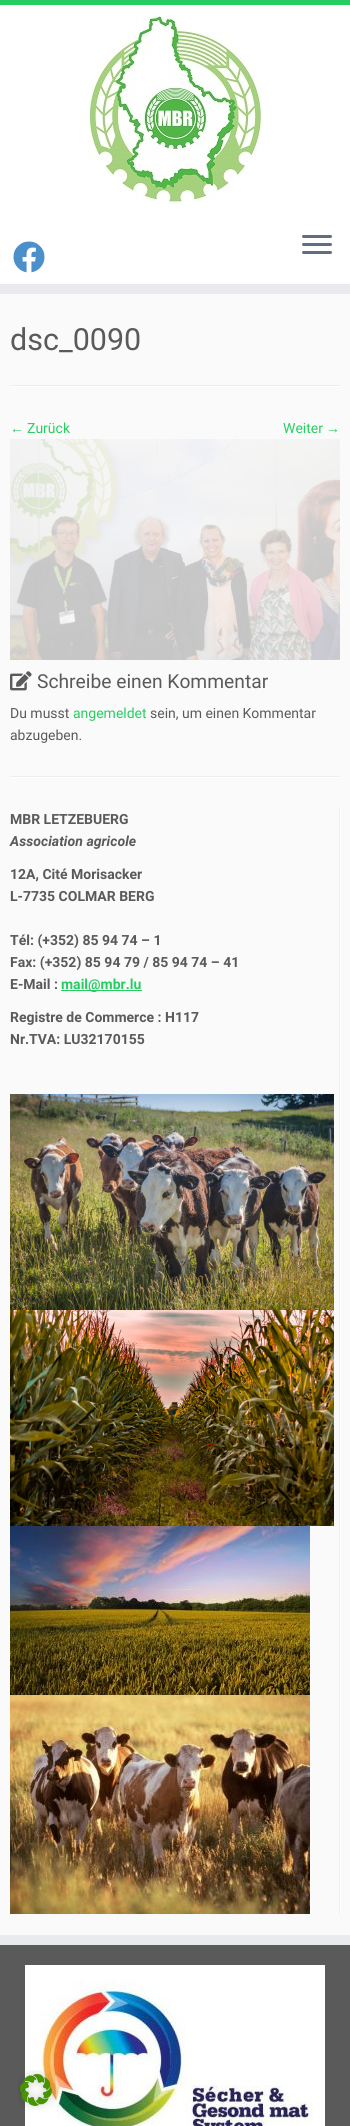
import math
import cairo

surface = cairo.ImageSurface(cairo.FORMAT_RGB24, 350, 2126)
ctx = cairo.Context(surface)
options = cairo.FontOptions()
options.set_hint_metrics(cairo.HINT_METRICS_OFF)
options.set_hint_style(cairo.HINT_STYLE_NONE)
ctx.set_font_options(options)
ctx.set_miter_limit(4)


def set_color(code):
    ctx.set_source_rgb(*(v / 255 for v in bytes.fromhex(code[-6:])))


def draw_text(x, y, s, family, size, color, bold=False, italic=False):
    ctx.select_font_face(family, cairo.FONT_SLANT_ITALIC if italic else cairo.FONT_SLANT_NORMAL, cairo.FONT_WEIGHT_BOLD if bold else cairo.FONT_WEIGHT_NORMAL)
    ctx.set_font_size(size)
    set_color(color)
    ctx.move_to(x, y)
    ctx.show_text(s)


def fill_rect(x, y, w, h, color):
    set_color(color)
    ctx.rectangle(x, y, w, h)
    ctx.fill()


def rounded_rect(x, y, w, h, r):
    ctx.new_sub_path()
    for i, (u, v) in enumerate([(x + w - r, y + h - r), (x + r, y + h - r), (x + r, y + r), (x + w - r, y + r)]):
        ctx.arc(u, v, r, i * math.pi / 2, (i + 1) * math.pi / 2)
    ctx.close_path()


def draw_image(path, x, y, w, h):
    ctx.save()
    ctx.set_source_surface(cairo.ImageSurface.create_from_png(path), x, y)
    ctx.rectangle(x, y, w, h)
    ctx.fill()
    ctx.restore()


set_color("#fafafa")
ctx.paint()
fill_rect(0, 5, 350, 279, "#ffffff")
fill_rect(0, 0, 350, 5, "#26ce61")
fill_rect(0, 284, 350, 10, "#e9eaee")
draw_image("assets/img1.png", 88, 15, 175, 190)
draw_image("assets/img2.png", 13, 241, 32, 32)
set_color("#5f6f81")
rounded_rect(302, 235, 30, 3, 1.5)
ctx.fill()
rounded_rect(302, 243, 30, 3, 1.5)
ctx.fill()
rounded_rect(302, 251, 30, 3, 1.5)
ctx.fill()
draw_text(10, 350, "dsc_0090", "Roboto", 30.5, "#5a5a5a")
fill_rect(10, 385, 330, 1, "#eeeeee")
fill_rect(10, 386, 330, 1, "#ffffff")
draw_text(10, 433, "←", "Liberation Serif", 14, "#26ce61")
draw_text(27, 433, "Zurück", "Roboto", 14, "#26ce61")
draw_text(283, 433, "Weiter", "Roboto", 14, "#26ce61")
draw_text(326, 433, "→", "Liberation Serif", 14, "#26ce61")
draw_image("assets/img3.png", 10, 439, 330, 221)
draw_image("assets/img4.png", 10, 671, 22, 20)
draw_text(37, 688, "Schreibe einen Kommentar", "Roboto", 19.25, "#5a5a5a")
draw_text(10, 718, "Du musst", "Roboto", 14, "#5a5a5a")
draw_text(73, 718, "angemeldet", "Roboto", 14, "#26ce61")
draw_text(150, 718, "sein, um einen Kommentar", "Roboto", 14, "#5a5a5a")
draw_text(10, 740, "abzugeben.", "Roboto", 14, "#5a5a5a")
fill_rect(10, 776, 330, 1, "#eeeeee")
fill_rect(10, 777, 330, 1, "#ffffff")
fill_rect(339, 808, 1, 1106, "#eeeeee")
draw_text(10, 824, "MBR LETZEBUERG", "Roboto", 14, "#5a5a5a", bold=True)
draw_text(10, 846, "Association agricole", "Roboto", 14, "#5a5a5a", bold=True, italic=True)
draw_text(10, 879, "12A, Cité Morisacker", "Roboto", 14, "#5a5a5a", bold=True)
draw_text(10, 901, "L-7735 COLMAR BERG", "Roboto", 14, "#5a5a5a", bold=True)
draw_text(10, 945, "Tél: (+352) 85 94 74 – 1", "Roboto", 14, "#5a5a5a", bold=True)
draw_text(10, 967, "Fax: (+352) 85 94 79 / 85 94 74 – 41", "Roboto", 14, "#5a5a5a", bold=True)
draw_text(10, 989, "E-Mail :", "Roboto", 14, "#5a5a5a", bold=True)
fill_rect(61, 990, 81, 1, "#26ce61")
draw_text(61, 989, "mail@mbr.lu", "Roboto", 14, "#26ce61", bold=True)
draw_text(10, 1022, "Registre de Commerce : H117", "Roboto", 14, "#5a5a5a", bold=True)
draw_text(10, 1044, "Nr.TVA: LU32170155", "Roboto", 14, "#5a5a5a", bold=True)
fill_rect(340, 808, 1, 1106, "#ffffff")
draw_image("assets/img5.png", 10, 1094, 324, 216)
draw_image("assets/img6.png", 10, 1310, 324, 216)
draw_image("assets/img7.png", 10, 1526, 300, 169)
draw_image("assets/img8.png", 10, 1695, 300, 219)
fill_rect(0, 1945, 350, 181, "#5a5a5a")
fill_rect(0, 1935, 350, 10, "#e9eaee")
draw_image("assets/img9.png", 25, 1965, 300, 161)
draw_image("assets/img10.png", 18, 2070, 38, 40)
surface.write_to_png("output.png")
